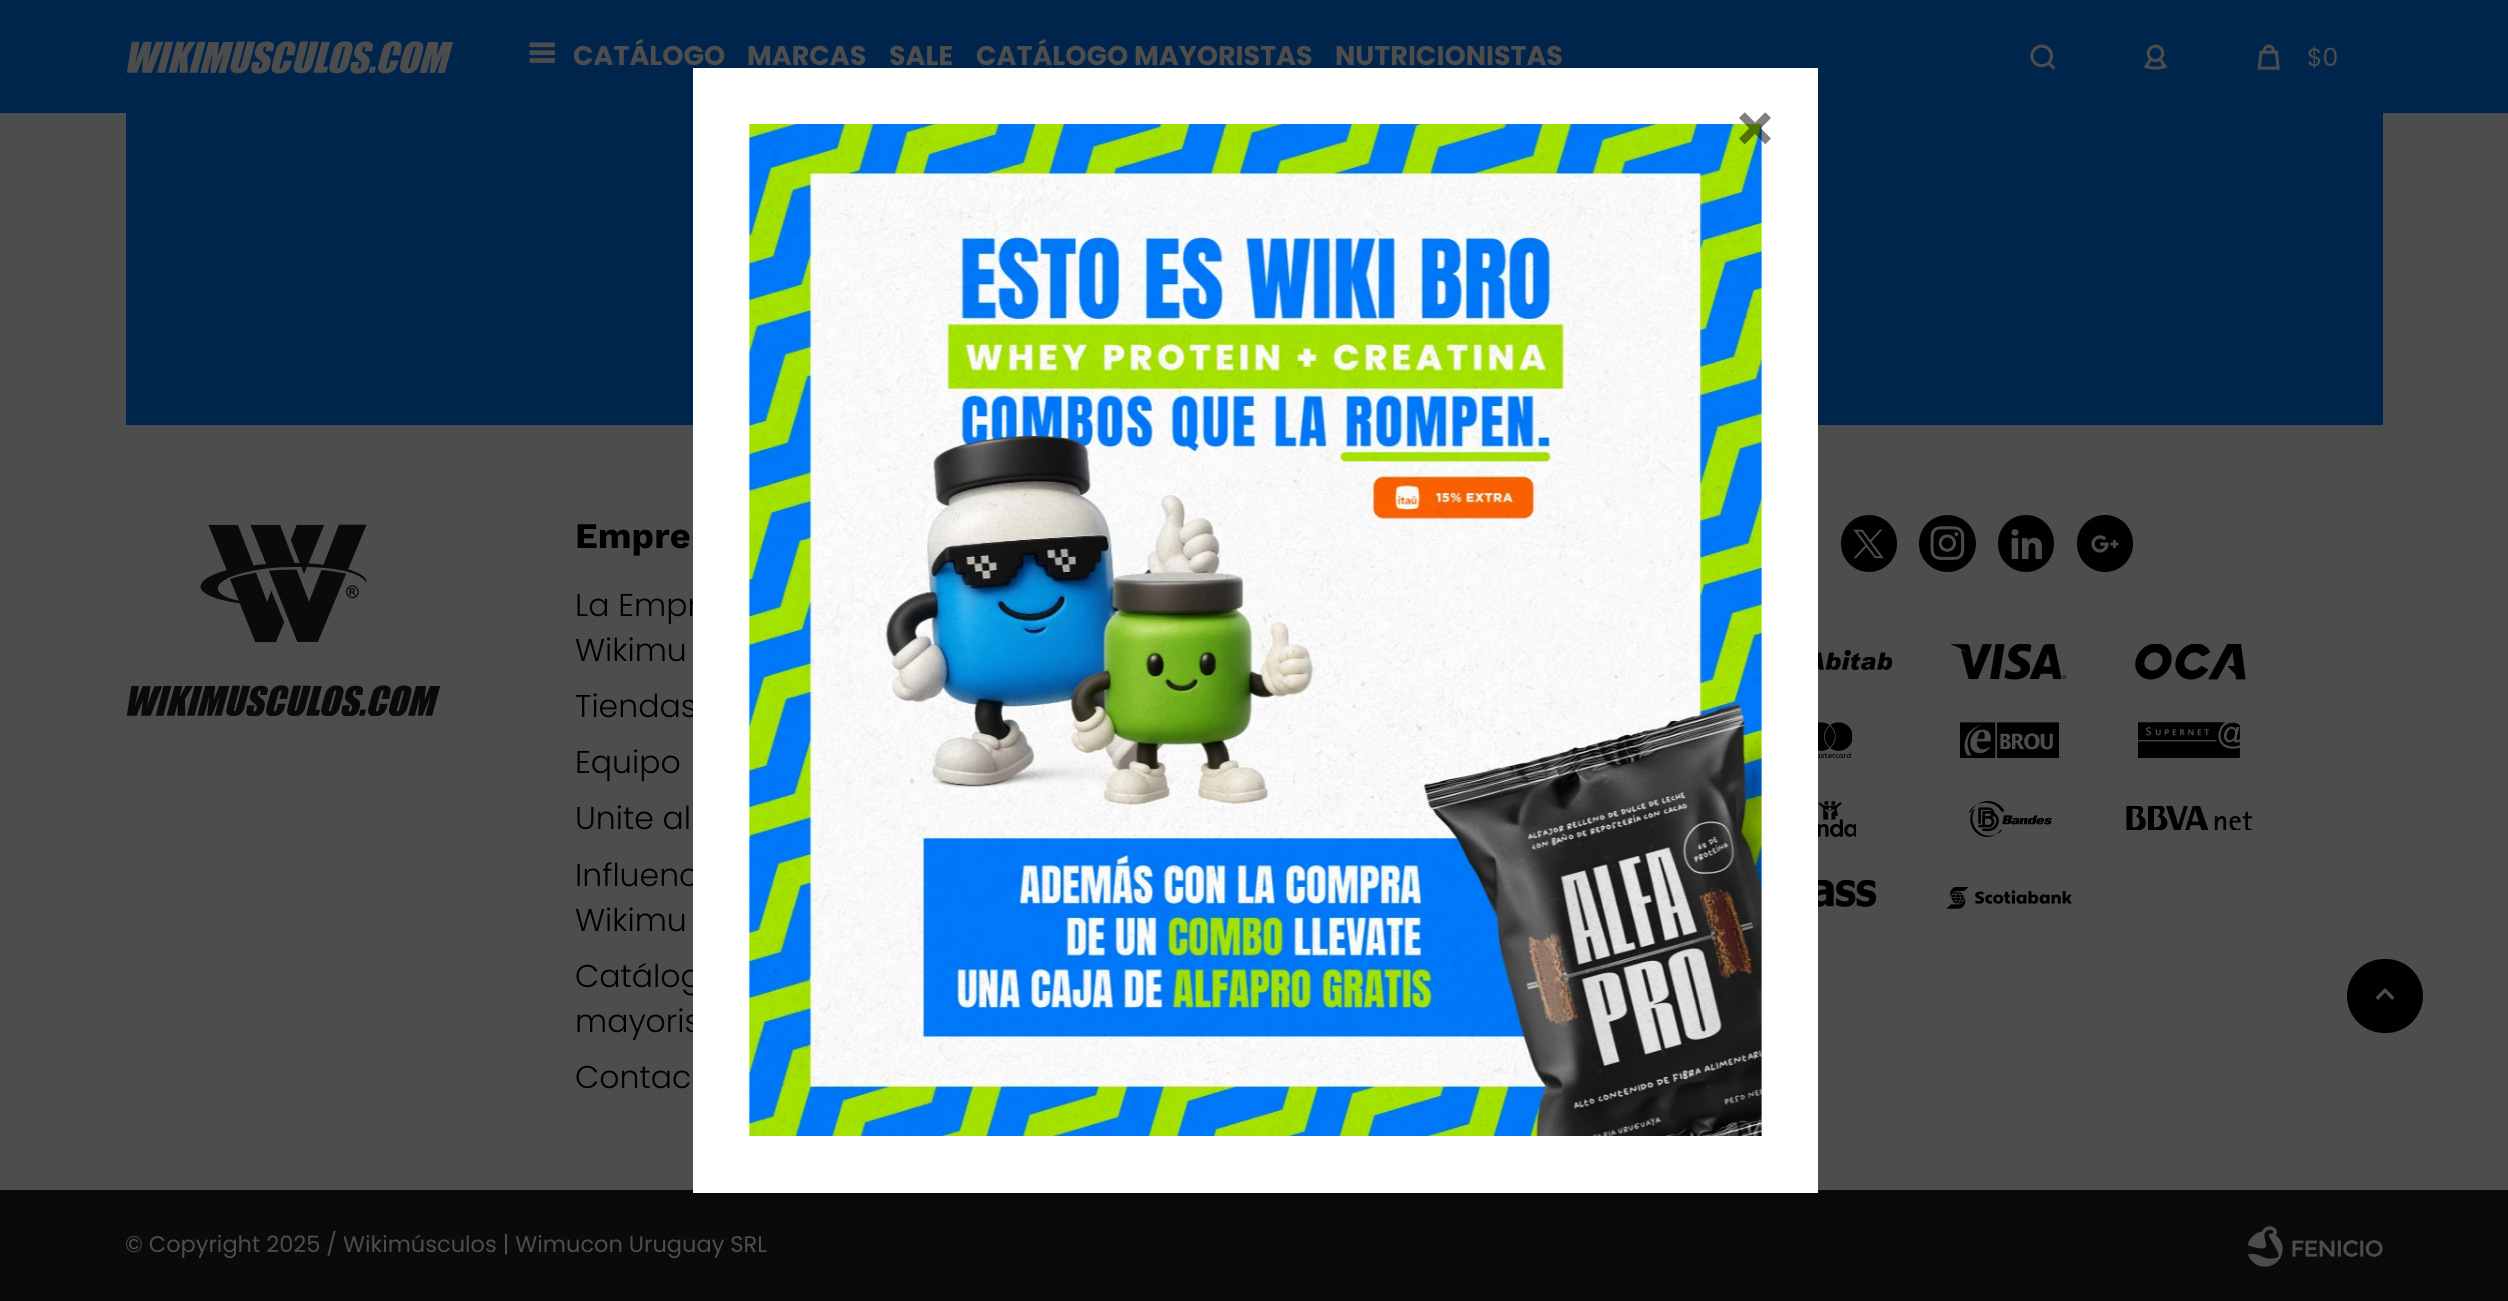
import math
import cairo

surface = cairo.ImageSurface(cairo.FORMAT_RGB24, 2508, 1301)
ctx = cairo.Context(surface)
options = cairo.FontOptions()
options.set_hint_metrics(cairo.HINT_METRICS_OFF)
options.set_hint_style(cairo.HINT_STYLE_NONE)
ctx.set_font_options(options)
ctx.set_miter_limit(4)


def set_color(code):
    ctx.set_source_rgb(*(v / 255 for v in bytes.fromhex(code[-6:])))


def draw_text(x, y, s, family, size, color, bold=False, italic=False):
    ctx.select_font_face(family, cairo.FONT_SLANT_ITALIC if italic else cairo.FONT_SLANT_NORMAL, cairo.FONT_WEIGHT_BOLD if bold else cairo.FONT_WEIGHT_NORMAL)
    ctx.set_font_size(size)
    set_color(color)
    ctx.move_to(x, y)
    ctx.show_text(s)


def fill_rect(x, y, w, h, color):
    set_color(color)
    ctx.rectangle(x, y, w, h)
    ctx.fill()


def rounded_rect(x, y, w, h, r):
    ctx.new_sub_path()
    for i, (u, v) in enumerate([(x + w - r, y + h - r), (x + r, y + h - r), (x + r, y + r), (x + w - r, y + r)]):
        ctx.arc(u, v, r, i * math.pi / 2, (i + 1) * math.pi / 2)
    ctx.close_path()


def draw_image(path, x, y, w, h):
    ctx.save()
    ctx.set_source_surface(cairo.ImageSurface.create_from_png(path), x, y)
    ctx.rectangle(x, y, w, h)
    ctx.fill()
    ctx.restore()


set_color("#4d4d4d")
ctx.paint()
fill_rect(0, 0, 2508, 113, "#00254d")
draw_image("assets/img1.png", 127, 41, 326, 33)
draw_image("assets/img2.png", 529, 42, 26, 21)
draw_text(573, 65, "CATÁLOGO", "Poppins", 27, "#4d4d4d", bold=True)
draw_text(747, 65, "MARCAS", "Poppins", 27, "#4d4d4d", bold=True)
draw_text(889, 65, "SALE", "Poppins", 27, "#4d4d4d", bold=True)
draw_text(976, 65, "CATÁLOGO MAYORISTAS", "Poppins", 27, "#4d4d4d", bold=True)
draw_text(1335, 65, "NUTRICIONISTAS", "Poppins", 27, "#4d4d4d", bold=True)
draw_image("assets/img3.png", 2030, 44, 26, 26)
draw_image("assets/img4.png", 2143, 44, 25, 26)
draw_image("assets/img5.png", 2257, 44, 23, 26)
draw_text(2307, 66, "$0", "Poppins", 25, "#4d4d4d")
fill_rect(126, 113, 2257, 312, "#00254d")
draw_image("assets/img6.png", 126, 524, 314, 192)
draw_text(575, 548, "Empre", "Work Sans", 36, "#000000", bold=True)
draw_text(575, 616, "La Empr", "Poppins Light", 31.5, "#000000")
draw_text(575, 661, "Wikimu", "Poppins Light", 31.5, "#000000")
draw_text(575, 717, "Tiendas", "Poppins Light", 31.5, "#000000")
draw_text(575, 773, "Equipo", "Poppins Light", 31.5, "#000000")
draw_text(575, 829, "Unite al", "Poppins Light", 31.5, "#000000")
draw_text(575, 886, "Influenc", "Poppins Light", 31.5, "#000000")
draw_text(575, 931, "Wikimu", "Poppins Light", 31.5, "#000000")
draw_text(575, 987, "Catálog", "Poppins Light", 31.5, "#000000")
draw_text(575, 1032, "mayoris", "Poppins Light", 31.5, "#000000")
draw_text(575, 1088, "Contac", "Poppins Light", 31.5, "#000000")
rounded_rect(1841, 515, 56, 57, 28)
ctx.fill()
draw_image("assets/img7.png", 1853, 529, 31, 30)
ctx.arc(1947.5, 543.5, 28.5, 0, 2 * math.pi)
ctx.fill()
draw_image("assets/img8.png", 1930, 526, 35, 34)
rounded_rect(1998, 515, 56, 57, 28)
ctx.fill()
draw_image("assets/img9.png", 2011, 529, 31, 31)
rounded_rect(2077, 515, 56, 57, 28)
ctx.fill()
draw_image("assets/img10.png", 2091, 535, 28, 18)
draw_image("assets/img11.png", 1818, 649, 74, 21)
draw_image("assets/img12.png", 1951, 644, 116, 36)
draw_image("assets/img13.png", 2135, 644, 111, 36)
draw_image("assets/img14.png", 1818, 722, 34, 36)
draw_image("assets/img15.png", 1960, 722, 99, 36)
draw_image("assets/img16.png", 2138, 722, 102, 36)
draw_image("assets/img17.png", 1818, 801, 38, 36)
draw_image("assets/img18.png", 1969, 801, 83, 36)
draw_image("assets/img19.png", 2126, 806, 126, 24)
draw_image("assets/img20.png", 1818, 880, 59, 27)
draw_image("assets/img21.png", 1946, 887, 126, 22)
fill_rect(0, 1190, 2508, 111, "#0a0a0a")
draw_text(125, 1252, "© Copyright 2025 / Wikimúsculos | Wimucon Uruguay SRL", "Poppins", 22.5, "#4d4d4d")
draw_image("assets/img22.png", 2248, 1226, 135, 41)
fill_rect(693, 68, 1125, 1125, "#ffffff")
draw_image("assets/img24.png", 748, 124, 1014, 1012)
draw_image("assets/img23.png", 1739, 112, 32, 32)
set_color("#000000")
rounded_rect(2347, 959, 76, 74, 37)
ctx.fill()
set_color("#4d4d4d")
ctx.new_path()
ctx.move_to(2385, 988)
ctx.line_to(2394.5, 997.5)
ctx.line_to(2392, 1000)
ctx.line_to(2385, 992.5)
ctx.line_to(2378, 1000)
ctx.line_to(2375.5, 997.5)
ctx.close_path()
ctx.fill()
surface.write_to_png("output.png")
